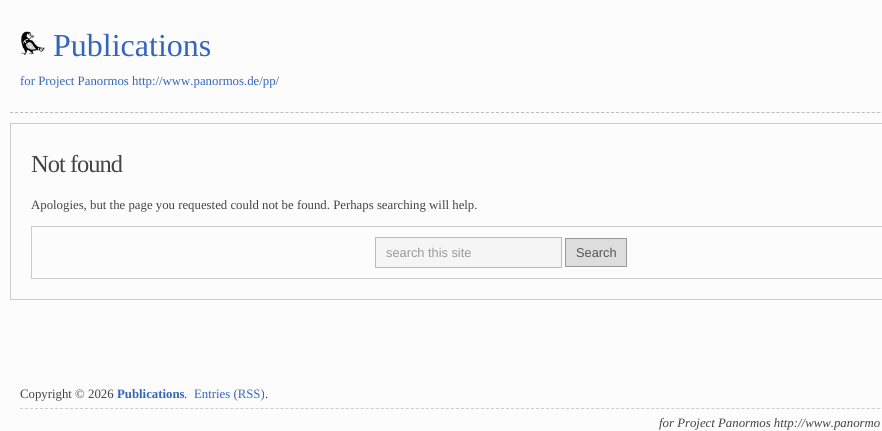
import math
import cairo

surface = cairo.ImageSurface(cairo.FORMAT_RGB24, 882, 431)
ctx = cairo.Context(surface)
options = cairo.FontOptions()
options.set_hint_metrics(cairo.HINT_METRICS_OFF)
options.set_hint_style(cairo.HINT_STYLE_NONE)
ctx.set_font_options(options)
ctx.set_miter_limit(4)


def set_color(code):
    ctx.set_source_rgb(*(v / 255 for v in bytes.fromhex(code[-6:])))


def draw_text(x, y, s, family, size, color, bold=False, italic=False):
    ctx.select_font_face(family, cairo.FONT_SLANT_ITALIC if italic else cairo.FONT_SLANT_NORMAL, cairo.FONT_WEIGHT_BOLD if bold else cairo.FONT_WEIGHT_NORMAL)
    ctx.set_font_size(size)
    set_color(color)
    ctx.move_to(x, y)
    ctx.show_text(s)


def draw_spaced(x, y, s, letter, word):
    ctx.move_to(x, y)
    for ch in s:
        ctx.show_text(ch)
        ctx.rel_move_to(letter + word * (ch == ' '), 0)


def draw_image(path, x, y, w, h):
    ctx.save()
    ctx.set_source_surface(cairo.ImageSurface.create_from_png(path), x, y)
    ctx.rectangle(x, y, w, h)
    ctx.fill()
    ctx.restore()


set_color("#fcfcfc")
ctx.paint()
draw_image("assets/img1.png", 21, 31, 24, 24)
draw_text(53, 56, "Publications", "Liberation Serif", 32, "#3366bb")
draw_text(20, 85, "for Project Panormos http://www.panormos.de/pp/", "Liberation Serif", 12.8, "#3366bb")
ctx.new_path()
ctx.move_to(10, 112.5)
ctx.line_to(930, 112.5)
set_color("#bbbbbb")
ctx.set_line_width(1)
ctx.set_dash([3, 2.01])
ctx.stroke()
ctx.rectangle(10.5, 123.5, 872, 176)
set_color("#cccccc")
ctx.set_dash([])
ctx.stroke()
ctx.set_font_size(24.5)
set_color("#444444")
draw_spaced(31, 172, "Not found", -1, 0)
draw_text(31, 209, "Apologies, but the page you requested could not be found. Perhaps searching will help.", "Liberation Serif", 12.8, "#444444")
ctx.rectangle(31.5, 226.5, 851, 52)
set_color("#cccccc")
ctx.stroke()
set_color("#f5f5f5")
ctx.rectangle(375.5, 237.5, 186, 30)
ctx.fill_preserve()
set_color("#bbbbbb")
ctx.stroke()
draw_text(386, 257, "search this site", "Liberation Sans", 12.8, "#999999")
set_color("#dddddd")
ctx.rectangle(565.5, 238.5, 61, 28)
ctx.fill_preserve()
set_color("#999999")
ctx.stroke()
draw_text(576, 257, "Search", "Liberation Sans", 12.8, "#555555")
draw_text(20, 398, "Copyright © 2026", "Liberation Serif", 12.8, "#444444")
draw_text(117, 398, "Publications", "Liberation Serif", 12.8, "#3366bb", bold=True)
draw_text(184, 398, ".", "Liberation Serif", 12.8, "#444444")
draw_text(194, 398, "Entries (RSS)", "Liberation Serif", 12.8, "#3366bb")
draw_text(265, 398, ".", "Liberation Serif", 12.8, "#444444")
ctx.new_path()
ctx.move_to(20, 408.5)
ctx.line_to(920, 408.5)
set_color("#cccccc")
ctx.set_dash([3, 2.01])
ctx.stroke()
draw_text(659, 427, "for Project Panormos http://www.panormo", "Liberation Serif", 12.8, "#444444", italic=True)
surface.write_to_png("output.png")
